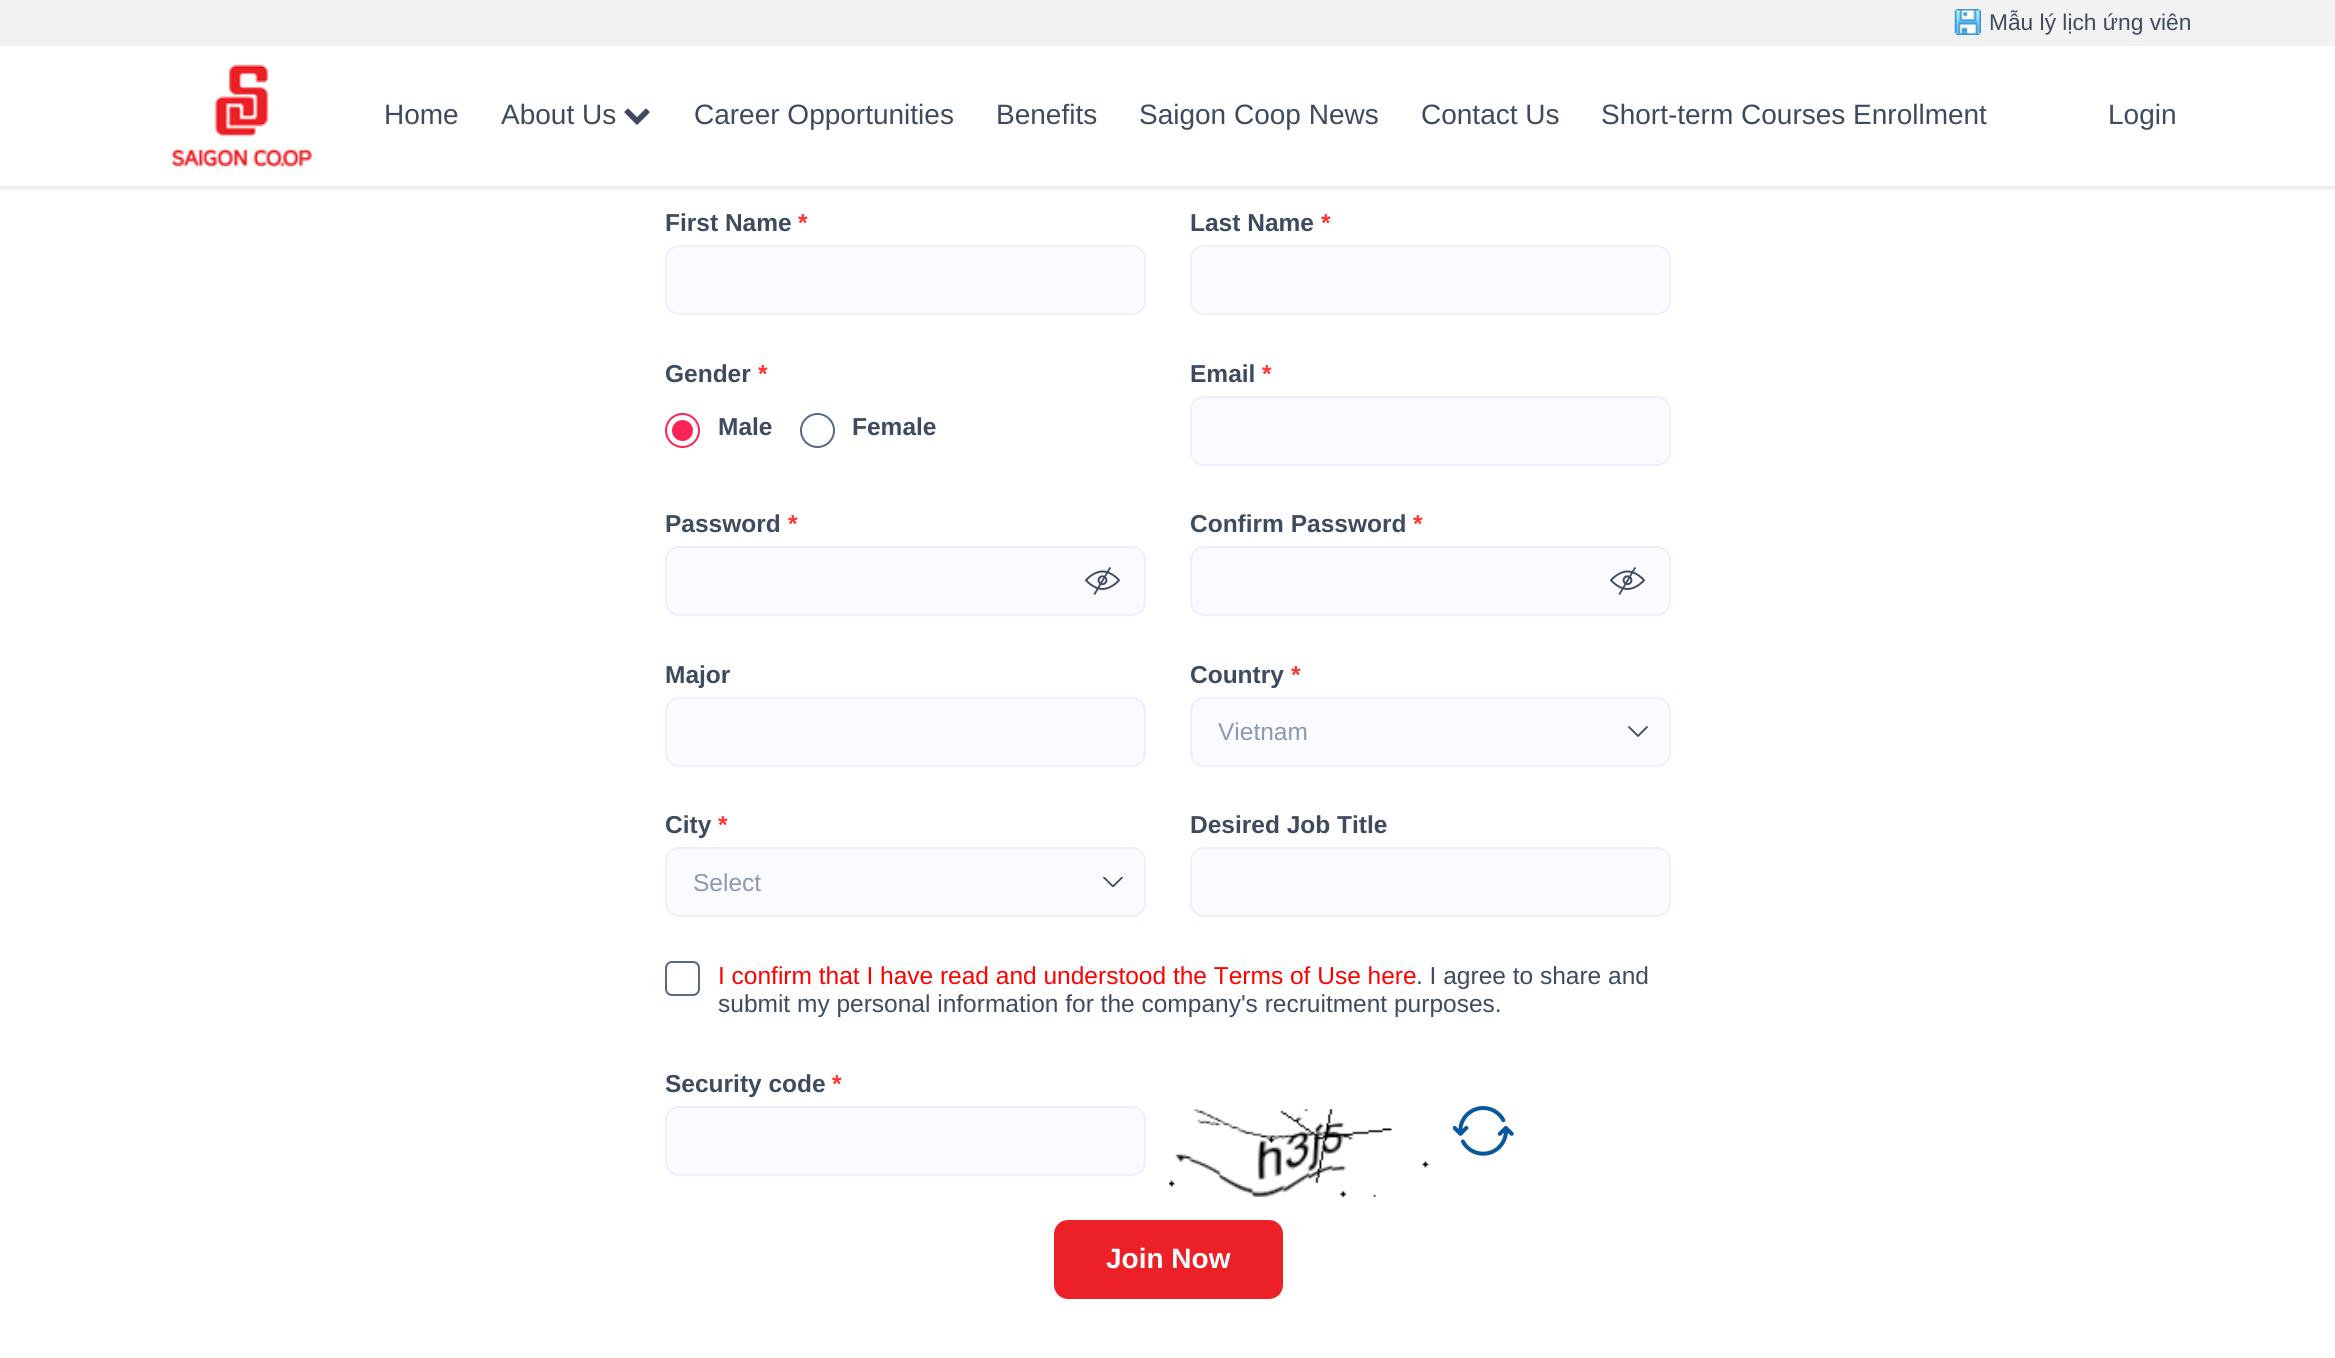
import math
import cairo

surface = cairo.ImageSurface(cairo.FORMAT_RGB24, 2335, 1358)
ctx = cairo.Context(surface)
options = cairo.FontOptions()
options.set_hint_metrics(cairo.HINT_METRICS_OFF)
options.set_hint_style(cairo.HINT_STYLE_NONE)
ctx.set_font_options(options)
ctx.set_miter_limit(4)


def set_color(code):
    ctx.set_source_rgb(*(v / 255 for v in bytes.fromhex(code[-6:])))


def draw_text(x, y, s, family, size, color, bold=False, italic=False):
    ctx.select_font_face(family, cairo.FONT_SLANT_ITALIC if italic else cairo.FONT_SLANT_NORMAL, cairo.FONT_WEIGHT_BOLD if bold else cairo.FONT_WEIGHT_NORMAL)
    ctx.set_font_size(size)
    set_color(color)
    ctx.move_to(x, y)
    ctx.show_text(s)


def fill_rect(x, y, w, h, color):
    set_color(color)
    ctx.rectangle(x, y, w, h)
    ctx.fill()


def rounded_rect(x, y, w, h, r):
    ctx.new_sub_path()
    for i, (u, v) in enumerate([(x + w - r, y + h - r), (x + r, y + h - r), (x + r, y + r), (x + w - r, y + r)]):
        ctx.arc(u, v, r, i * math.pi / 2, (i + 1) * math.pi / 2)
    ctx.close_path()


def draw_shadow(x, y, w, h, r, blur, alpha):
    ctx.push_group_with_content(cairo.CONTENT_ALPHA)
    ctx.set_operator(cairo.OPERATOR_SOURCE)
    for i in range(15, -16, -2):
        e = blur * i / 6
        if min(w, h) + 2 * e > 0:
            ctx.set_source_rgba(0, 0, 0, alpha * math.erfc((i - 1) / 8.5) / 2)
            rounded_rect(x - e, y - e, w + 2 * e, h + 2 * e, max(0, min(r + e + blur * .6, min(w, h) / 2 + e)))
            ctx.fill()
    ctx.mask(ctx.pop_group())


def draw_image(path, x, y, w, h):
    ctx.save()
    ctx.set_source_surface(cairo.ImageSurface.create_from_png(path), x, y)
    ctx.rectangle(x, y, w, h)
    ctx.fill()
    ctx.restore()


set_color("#ffffff")
ctx.paint()
set_color("#000000")
draw_shadow(0, 4, 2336, 185, 0, 2, 0.1)
fill_rect(0, 46, 2335, 140, "#ffffff")
fill_rect(0, 0, 2335, 46, "#f2f2f2")
draw_image("assets/img1.png", 1954, 9, 27, 26)
draw_text(1989, 30, "Mẫu lý lịch ứng viên", "Liberation Sans", 22.75, "#3e4b5e")
draw_image("assets/img2.png", 171, 64, 141, 103)
draw_text(384, 124, "Home", "Liberation Sans", 28, "#3e4b5e")
draw_text(501, 124, "About Us", "Liberation Sans", 28, "#3e4b5e")
draw_image("assets/img3.png", 624, 108, 26, 17)
draw_text(694, 124, "Career Opportunities", "Liberation Sans", 28, "#3e4b5e")
draw_text(996, 124, "Benefits", "Liberation Sans", 28, "#3e4b5e")
draw_text(1139, 124, "Saigon Coop News", "Liberation Sans", 28, "#3e4b5e")
draw_text(1421, 124, "Contact Us", "Liberation Sans", 28, "#3e4b5e")
draw_text(1601, 124, "Short-term Courses Enrollment", "Liberation Sans", 28, "#3e4b5e")
draw_text(2108, 124, "Login", "Liberation Sans", 28, "#3e4b5e")
draw_text(665, 231, "First Name", "Liberation Sans", 24.5, "#3e4b5e", bold=True)
draw_text(798, 231, "*", "Liberation Sans", 24.5, "#ff3333", bold=True)
set_color("#fbfaff")
rounded_rect(666, 246, 479, 68, 13)
ctx.fill_preserve()
set_color("#f0edff")
ctx.stroke()
draw_text(1190, 231, "Last Name", "Liberation Sans", 24.5, "#3e4b5e", bold=True)
draw_text(1321, 231, "*", "Liberation Sans", 24.5, "#ff3333", bold=True)
set_color("#fbfaff")
rounded_rect(1191, 246, 479, 68, 13)
ctx.fill_preserve()
set_color("#f0edff")
ctx.stroke()
draw_text(665, 382, "Gender", "Liberation Sans", 24.5, "#3e4b5e", bold=True)
draw_text(758, 382, "*", "Liberation Sans", 24.5, "#ff3333", bold=True)
ctx.new_path()
ctx.arc(682.5, 430.5, 16.5, 0, 2 * math.pi)
set_color("#ff2458")
ctx.stroke()
ctx.arc(682.5, 430.5, 10.5, 0, 2 * math.pi)
ctx.fill()
draw_text(718, 435, "Male", "Liberation Sans", 24.5, "#3e4b5e", bold=True)
ctx.new_path()
ctx.arc(817.5, 430.5, 16.5, 0, 2 * math.pi)
set_color("#596980")
ctx.stroke()
draw_text(852, 435, "Female", "Liberation Sans", 24.5, "#3e4b5e", bold=True)
draw_text(1190, 382, "Email", "Liberation Sans", 24.5, "#3e4b5e", bold=True)
draw_text(1262, 382, "*", "Liberation Sans", 24.5, "#ff3333", bold=True)
set_color("#fbfaff")
rounded_rect(1191, 397, 479, 68, 13)
ctx.fill_preserve()
set_color("#f0edff")
ctx.stroke()
draw_text(665, 532, "Password", "Liberation Sans", 24.5, "#3e4b5e", bold=True)
draw_text(788, 532, "*", "Liberation Sans", 24.5, "#ff3333", bold=True)
set_color("#fbfaff")
rounded_rect(666, 547, 479, 68, 13)
ctx.fill_preserve()
set_color("#f0edff")
ctx.stroke()
draw_image("assets/img4.png", 1085, 567, 35, 28)
draw_text(1190, 532, "Confirm Password", "Liberation Sans", 24.5, "#3e4b5e", bold=True)
draw_text(1413, 532, "*", "Liberation Sans", 24.5, "#ff3333", bold=True)
set_color("#fbfaff")
rounded_rect(1191, 547, 479, 68, 13)
ctx.fill_preserve()
set_color("#f0edff")
ctx.stroke()
draw_image("assets/img4.png", 1610, 567, 35, 28)
draw_text(665, 683, "Major", "Liberation Sans", 24.5, "#3e4b5e", bold=True)
set_color("#fbfaff")
rounded_rect(666, 698, 479, 68, 13)
ctx.fill_preserve()
set_color("#f0edff")
ctx.stroke()
draw_text(1190, 683, "Country", "Liberation Sans", 24.5, "#3e4b5e", bold=True)
draw_text(1291, 683, "*", "Liberation Sans", 24.5, "#ff3333", bold=True)
set_color("#fbfaff")
rounded_rect(1190, 697, 481, 70, 14)
ctx.fill()
ctx.new_path()
ctx.move_to(1629, 727)
ctx.line_to(1638, 736)
ctx.line_to(1647, 727)
set_color("#3e4b5e")
ctx.set_line_width(1.8)
ctx.set_line_cap(cairo.LINE_CAP_ROUND)
ctx.set_line_join(cairo.LINE_JOIN_ROUND)
ctx.stroke()
rounded_rect(1191, 698, 479, 68, 13)
set_color("#f0edff")
ctx.set_line_width(2)
ctx.set_line_cap(cairo.LINE_CAP_BUTT)
ctx.set_line_join(cairo.LINE_JOIN_MITER)
ctx.stroke()
draw_text(1218, 740, "Vietnam", "Liberation Sans", 24.5, "#8999af")
draw_text(665, 833, "City", "Liberation Sans", 24.5, "#3e4b5e", bold=True)
draw_text(718, 833, "*", "Liberation Sans", 24.5, "#ff3333", bold=True)
set_color("#fbfaff")
rounded_rect(665, 847, 481, 70, 14)
ctx.fill()
ctx.save()
ctx.rectangle(1103, 877, 21, 10)
ctx.clip()
ctx.new_path()
ctx.move_to(1104, 877.5)
ctx.line_to(1113, 886.5)
ctx.line_to(1122, 877.5)
set_color("#3e4b5e")
ctx.set_line_width(1.8)
ctx.set_line_cap(cairo.LINE_CAP_ROUND)
ctx.set_line_join(cairo.LINE_JOIN_ROUND)
ctx.stroke()
ctx.restore()
rounded_rect(666, 848, 479, 68, 13)
set_color("#f0edff")
ctx.stroke()
draw_text(693, 891, "Select", "Liberation Sans", 24.5, "#8999af")
draw_text(1190, 833, "Desired Job Title", "Liberation Sans", 24.5, "#3e4b5e", bold=True)
set_color("#fbfaff")
rounded_rect(1191, 848, 479, 68, 13)
ctx.fill_preserve()
set_color("#f0edff")
ctx.stroke()
rounded_rect(666, 962, 33, 33, 6)
set_color("#596980")
ctx.stroke()
draw_text(718, 984, "I confirm that I have read and understood the Terms of Use here", "Liberation Sans", 24.5, "#ff0000")
draw_text(1416, 984, ". I agree to share and", "Liberation Sans", 24.5, "#3e4b5e")
draw_text(718, 1012, "submit my personal information for the company's recruitment purposes.", "Liberation Sans", 24.5, "#3e4b5e")
draw_text(665, 1092, "Security code", "Liberation Sans", 24.5, "#3e4b5e", bold=True)
draw_text(832, 1092, "*", "Liberation Sans", 24.5, "#ff3333", bold=True)
set_color("#fbfaff")
rounded_rect(666, 1107, 479, 68, 13)
ctx.fill_preserve()
set_color("#f0edff")
ctx.stroke()
draw_image("assets/img5.png", 1169, 1109, 260, 88)
draw_image("assets/img6.png", 1453, 1106, 61, 50)
set_color("#ec2127")
rounded_rect(1054, 1220, 229, 79, 14)
ctx.fill()
draw_text(1106, 1268, "Join Now", "Liberation Sans", 28, "#ffffff", bold=True)
surface.write_to_png("output.png")
